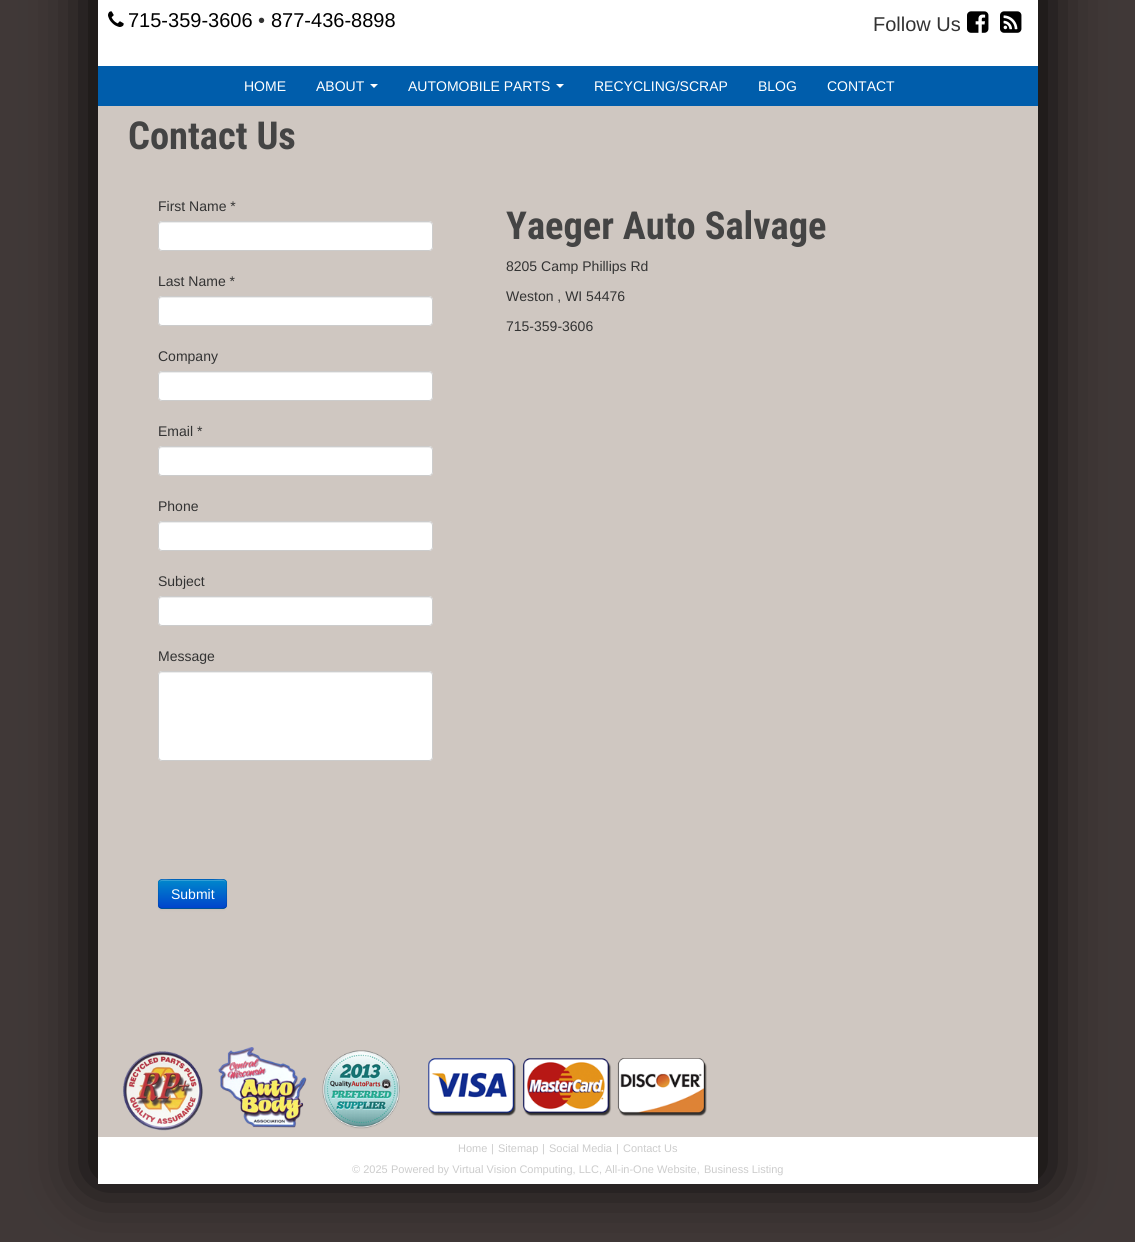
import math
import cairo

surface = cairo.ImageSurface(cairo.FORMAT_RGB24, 1135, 1242)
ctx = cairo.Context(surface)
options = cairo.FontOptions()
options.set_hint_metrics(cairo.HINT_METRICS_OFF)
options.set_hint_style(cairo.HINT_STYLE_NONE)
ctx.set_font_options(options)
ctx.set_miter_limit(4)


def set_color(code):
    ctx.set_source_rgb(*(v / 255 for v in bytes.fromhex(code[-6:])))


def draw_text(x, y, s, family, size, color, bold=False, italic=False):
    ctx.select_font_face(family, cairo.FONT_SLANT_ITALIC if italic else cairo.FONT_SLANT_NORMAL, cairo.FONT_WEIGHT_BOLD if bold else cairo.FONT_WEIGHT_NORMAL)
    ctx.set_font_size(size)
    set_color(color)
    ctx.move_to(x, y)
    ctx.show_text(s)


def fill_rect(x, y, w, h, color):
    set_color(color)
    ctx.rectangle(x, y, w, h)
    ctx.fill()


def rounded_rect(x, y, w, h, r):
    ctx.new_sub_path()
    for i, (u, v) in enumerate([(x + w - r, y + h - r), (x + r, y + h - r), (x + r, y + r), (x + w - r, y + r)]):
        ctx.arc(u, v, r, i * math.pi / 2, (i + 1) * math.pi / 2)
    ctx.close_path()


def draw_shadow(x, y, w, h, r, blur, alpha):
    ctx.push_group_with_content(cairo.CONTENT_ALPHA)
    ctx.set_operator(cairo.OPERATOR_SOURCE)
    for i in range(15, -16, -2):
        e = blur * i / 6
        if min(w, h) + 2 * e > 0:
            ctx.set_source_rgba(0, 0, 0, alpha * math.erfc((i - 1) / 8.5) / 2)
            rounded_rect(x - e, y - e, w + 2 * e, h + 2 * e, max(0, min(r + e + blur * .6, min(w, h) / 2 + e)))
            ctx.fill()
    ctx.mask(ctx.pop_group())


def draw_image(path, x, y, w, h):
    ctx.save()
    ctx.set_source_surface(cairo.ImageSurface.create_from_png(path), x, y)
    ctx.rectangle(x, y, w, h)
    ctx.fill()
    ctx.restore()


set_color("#403837")
ctx.paint()
set_color("#000000")
draw_shadow(93, -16, 950, 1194, 0, 30, 1)
fill_rect(98, 0, 940, 1184, "#ffffff")
draw_image("assets/img1.png", 108, 11, 16, 16)
draw_text(128, 27, "715-359-3606", "Liberation Sans", 20, "#000000")
draw_text(258, 27, "•", "Liberation Sans", 20, "#333333")
draw_text(271, 27, "877-436-8898", "Liberation Sans", 20, "#000000")
draw_text(873, 31, "Follow Us", "Liberation Sans", 20, "#333333")
draw_image("assets/img2.png", 967, 11, 22, 22)
draw_image("assets/img3.png", 1000, 11, 22, 22)
fill_rect(98, 66, 940, 40, "#005dab")
draw_text(244, 91, "HOME", "Liberation Sans", 14, "#ffffff")
draw_text(316, 91, "ABOUT", "Liberation Sans", 14, "#ffffff")
ctx.new_path()
ctx.move_to(370, 84)
ctx.line_to(378, 84)
ctx.line_to(374, 88)
ctx.close_path()
ctx.fill()
draw_text(408, 91, "AUTOMOBILE PARTS", "Liberation Sans", 14, "#ffffff")
ctx.new_path()
ctx.move_to(556, 84)
ctx.line_to(564, 84)
ctx.line_to(560, 88)
ctx.close_path()
ctx.fill()
draw_text(594, 91, "RECYCLING/SCRAP", "Liberation Sans", 14, "#ffffff")
draw_text(758, 91, "BLOG", "Liberation Sans", 14, "#ffffff")
draw_text(827, 91, "CONTACT", "Liberation Sans", 14, "#ffffff")
fill_rect(98, 106, 940, 1031, "#cfc7c1")
draw_text(128, 149, "Contact Us", "Roboto Condensed", 38.5, "#444444", bold=True)
draw_text(158, 211, "First Name *", "Liberation Sans", 14, "#333333")
set_color("#ffffff")
rounded_rect(158, 221, 275, 30, 4)
ctx.fill()
set_color("#ececec")
ctx.new_path()
ctx.move_to(162, 223)
ctx.line_to(429, 223)
ctx.curve_to(431, 223, 432, 224, 432, 226)
ctx.line_to(432, 225)
ctx.curve_to(432, 223, 431, 222, 429, 222)
ctx.line_to(162, 222)
ctx.curve_to(160, 222, 159, 223, 159, 225)
ctx.line_to(159, 226)
ctx.curve_to(159, 224, 160, 223, 162, 223)
ctx.close_path()
ctx.fill()
rounded_rect(158.5, 221.5, 274, 29, 3.5)
set_color("#cccccc")
ctx.set_line_width(1)
ctx.stroke()
draw_text(158, 286, "Last Name *", "Liberation Sans", 14, "#333333")
set_color("#ffffff")
rounded_rect(158, 296, 275, 30, 4)
ctx.fill()
set_color("#ececec")
ctx.new_path()
ctx.move_to(162, 298)
ctx.line_to(429, 298)
ctx.curve_to(431, 298, 432, 299, 432, 301)
ctx.line_to(432, 300)
ctx.curve_to(432, 298, 431, 297, 429, 297)
ctx.line_to(162, 297)
ctx.curve_to(160, 297, 159, 298, 159, 300)
ctx.line_to(159, 301)
ctx.curve_to(159, 299, 160, 298, 162, 298)
ctx.close_path()
ctx.fill()
rounded_rect(158.5, 296.5, 274, 29, 3.5)
set_color("#cccccc")
ctx.stroke()
draw_text(158, 361, "Company", "Liberation Sans", 14, "#333333")
set_color("#ffffff")
rounded_rect(158, 371, 275, 30, 4)
ctx.fill()
set_color("#ececec")
ctx.new_path()
ctx.move_to(162, 373)
ctx.line_to(429, 373)
ctx.curve_to(431, 373, 432, 374, 432, 376)
ctx.line_to(432, 375)
ctx.curve_to(432, 373, 431, 372, 429, 372)
ctx.line_to(162, 372)
ctx.curve_to(160, 372, 159, 373, 159, 375)
ctx.line_to(159, 376)
ctx.curve_to(159, 374, 160, 373, 162, 373)
ctx.close_path()
ctx.fill()
rounded_rect(158.5, 371.5, 274, 29, 3.5)
set_color("#cccccc")
ctx.stroke()
draw_text(158, 436, "Email *", "Liberation Sans", 14, "#333333")
set_color("#ffffff")
rounded_rect(158, 446, 275, 30, 4)
ctx.fill()
set_color("#ececec")
ctx.new_path()
ctx.move_to(162, 448)
ctx.line_to(429, 448)
ctx.curve_to(431, 448, 432, 449, 432, 451)
ctx.line_to(432, 450)
ctx.curve_to(432, 448, 431, 447, 429, 447)
ctx.line_to(162, 447)
ctx.curve_to(160, 447, 159, 448, 159, 450)
ctx.line_to(159, 451)
ctx.curve_to(159, 449, 160, 448, 162, 448)
ctx.close_path()
ctx.fill()
rounded_rect(158.5, 446.5, 274, 29, 3.5)
set_color("#cccccc")
ctx.stroke()
draw_text(158, 511, "Phone", "Liberation Sans", 14, "#333333")
set_color("#ffffff")
rounded_rect(158, 521, 275, 30, 4)
ctx.fill()
set_color("#ececec")
ctx.new_path()
ctx.move_to(162, 523)
ctx.line_to(429, 523)
ctx.curve_to(431, 523, 432, 524, 432, 526)
ctx.line_to(432, 525)
ctx.curve_to(432, 523, 431, 522, 429, 522)
ctx.line_to(162, 522)
ctx.curve_to(160, 522, 159, 523, 159, 525)
ctx.line_to(159, 526)
ctx.curve_to(159, 524, 160, 523, 162, 523)
ctx.close_path()
ctx.fill()
rounded_rect(158.5, 521.5, 274, 29, 3.5)
set_color("#cccccc")
ctx.stroke()
draw_text(158, 586, "Subject", "Liberation Sans", 14, "#333333")
set_color("#ffffff")
rounded_rect(158, 596, 275, 30, 4)
ctx.fill()
set_color("#ececec")
ctx.new_path()
ctx.move_to(162, 598)
ctx.line_to(429, 598)
ctx.curve_to(431, 598, 432, 599, 432, 601)
ctx.line_to(432, 600)
ctx.curve_to(432, 598, 431, 597, 429, 597)
ctx.line_to(162, 597)
ctx.curve_to(160, 597, 159, 598, 159, 600)
ctx.line_to(159, 601)
ctx.curve_to(159, 599, 160, 598, 162, 598)
ctx.close_path()
ctx.fill()
rounded_rect(158.5, 596.5, 274, 29, 3.5)
set_color("#cccccc")
ctx.stroke()
draw_text(158, 661, "Message", "Liberation Sans", 14, "#333333")
set_color("#ffffff")
rounded_rect(158, 671, 275, 90, 4)
ctx.fill()
set_color("#ececec")
ctx.new_path()
ctx.move_to(162, 673)
ctx.line_to(429, 673)
ctx.curve_to(431, 673, 432, 674, 432, 676)
ctx.line_to(432, 675)
ctx.curve_to(432, 673, 431, 672, 429, 672)
ctx.line_to(162, 672)
ctx.curve_to(160, 672, 159, 673, 159, 675)
ctx.line_to(159, 676)
ctx.curve_to(159, 674, 160, 673, 162, 673)
ctx.close_path()
ctx.fill()
rounded_rect(158.5, 671.5, 274, 89, 3.5)
set_color("#cccccc")
ctx.stroke()
set_color("#000000")
draw_shadow(158, 880, 69, 30, 4, 1, 0.05)
set_color("#006dcc")
rounded_rect(158, 879, 69, 30, 4)
ctx.fill()
ctx.save()
rounded_rect(158, 879, 69, 30, 4)
ctx.clip()
gradient = cairo.LinearGradient(193, 880, 193, 908)
gradient.add_color_stop_rgba(0, 0, 0.533, 0.8, 1)
gradient.add_color_stop_rgba(1, 0, 0.267, 0.8, 1)
ctx.set_source(gradient)
ctx.rectangle(158, 880, 69, 28)
ctx.fill()
ctx.restore()
ctx.set_source_rgba(1, 1, 1, 0.2)
ctx.new_path()
ctx.move_to(162, 881)
ctx.line_to(223, 881)
ctx.curve_to(225, 881, 226, 882, 226, 884)
ctx.curve_to(226, 877, 217, 880, 213, 880)
ctx.line_to(172, 880)
ctx.curve_to(168, 880, 159, 877, 159, 884)
ctx.curve_to(159, 882, 160, 881, 162, 881)
ctx.close_path()
ctx.fill()
ctx.new_path()
ctx.move_to(225.5, 907.5)
ctx.line_to(223.5, 908.5)
ctx.line_to(161.5, 908.5)
ctx.line_to(159.5, 907.5)
ctx.set_source_rgba(0, 0, 0, 0.25)
ctx.stroke()
ctx.new_path()
ctx.move_to(159.5, 907.5)
ctx.curve_to(157.5, 905.5, 158.5, 897, 158.5, 894)
ctx.curve_to(158.5, 878, 156, 879.5, 172, 879.5)
ctx.line_to(213, 879.5)
ctx.curve_to(229, 879.5, 226.5, 878, 226.5, 894)
ctx.curve_to(226.5, 897, 227.5, 905.5, 225.5, 907.5)
ctx.set_source_rgba(0, 0, 0, 0.1)
ctx.stroke()
draw_text(171, 899, "Submit", "Liberation Sans", 14, "#ffffff")
draw_text(506, 239, "Yaeger Auto Salvage", "Roboto Condensed", 38.5, "#444444", bold=True)
draw_text(506, 271, "8205 Camp Phillips Rd", "Liberation Sans", 14, "#333333")
draw_text(506, 301, "Weston , WI 54476", "Liberation Sans", 14, "#333333")
draw_text(506, 331, "715-359-3606", "Liberation Sans", 14, "#333333")
draw_image("assets/img4.png", 123, 1047, 277, 84)
draw_image("assets/img5.png", 428, 1058, 279, 59)
draw_text(458, 1152, "Home", "Liberation Sans", 11, "#cccccc")
draw_text(491, 1152, "|", "Liberation Sans", 11, "#cccccc")
draw_text(498, 1152, "Sitemap", "Liberation Sans", 11, "#cccccc")
draw_text(542, 1152, "|", "Liberation Sans", 11, "#cccccc")
draw_text(549, 1152, "Social Media", "Liberation Sans", 11, "#cccccc")
draw_text(616, 1152, "|", "Liberation Sans", 11, "#cccccc")
draw_text(623, 1152, "Contact Us", "Liberation Sans", 11, "#cccccc")
draw_text(352, 1173, "© 2025", "Liberation Sans", 11, "#cccccc")
draw_text(391, 1173, "Powered by Virtual Vision Computing, LLC, All-in-One Website,", "Liberation Sans", 11, "#cccccc")
draw_text(704, 1173, "Business Listing", "Liberation Sans", 11, "#cccccc")
surface.write_to_png("output.png")
